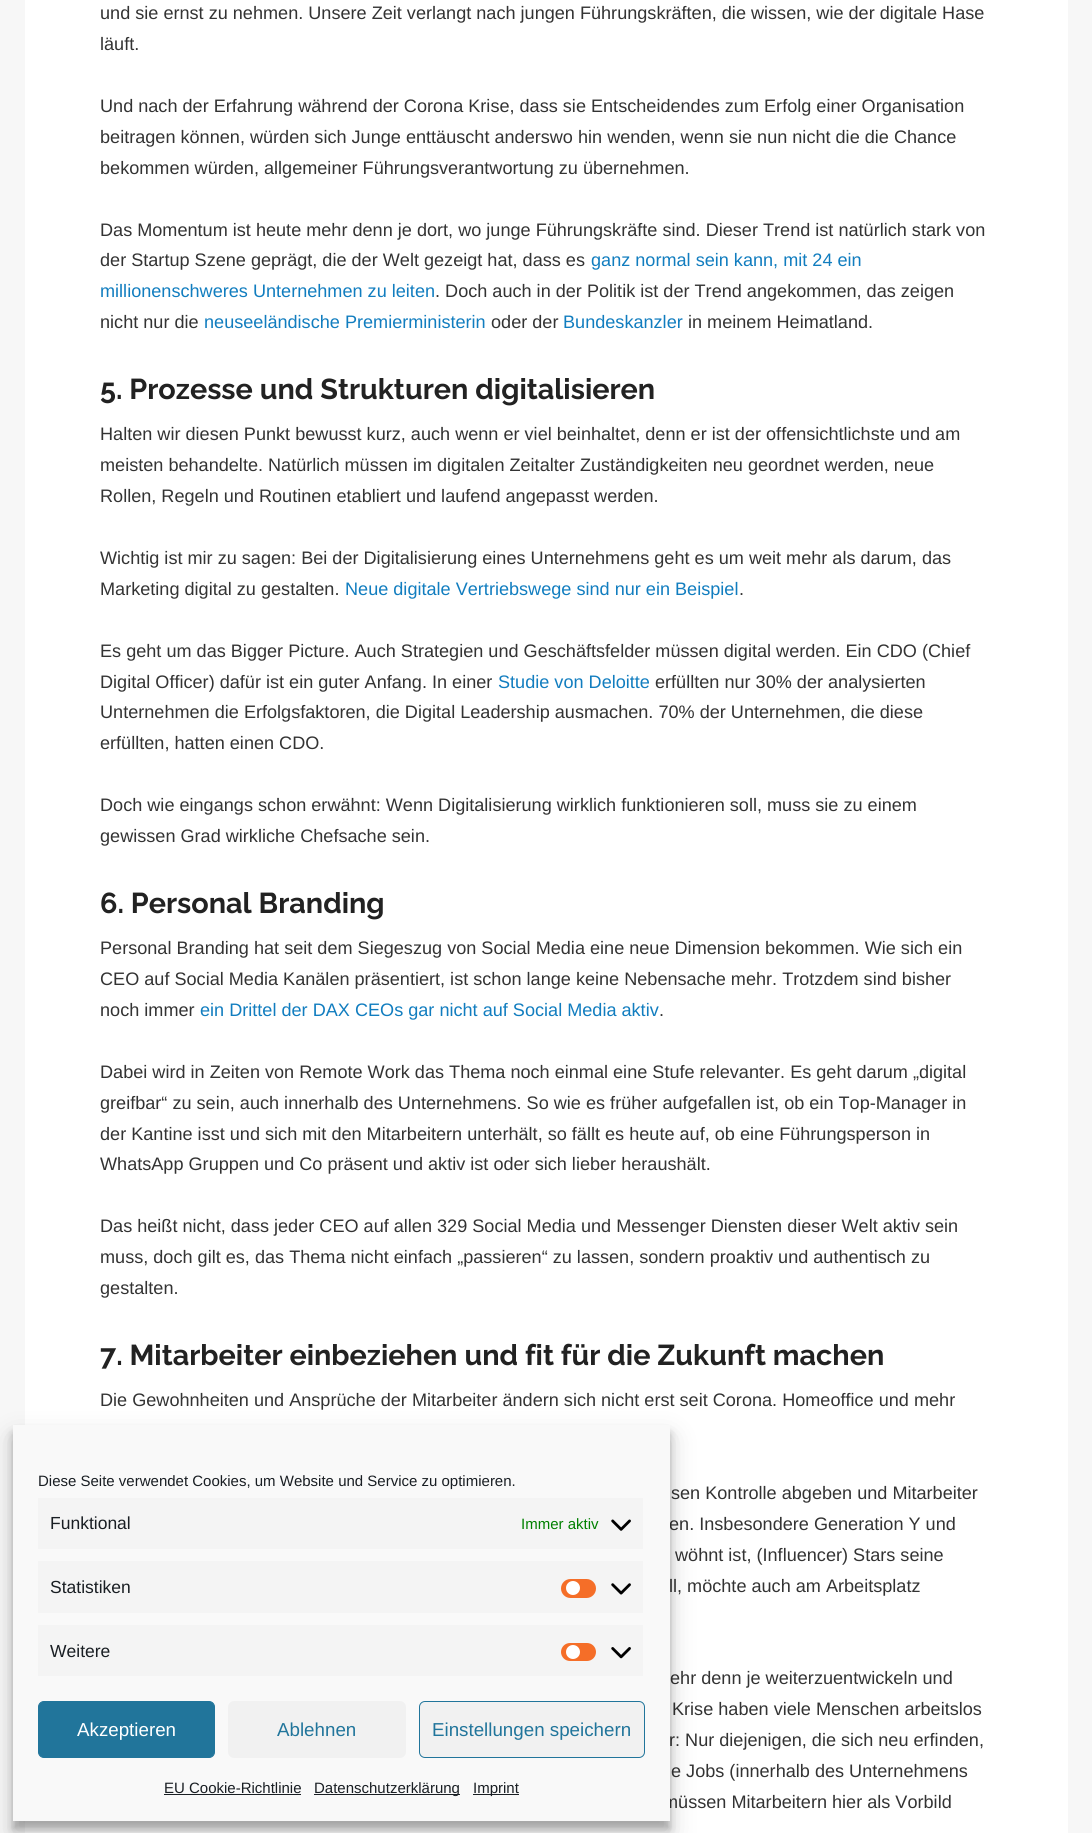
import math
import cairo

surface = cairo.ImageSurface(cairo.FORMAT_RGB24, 1092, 1833)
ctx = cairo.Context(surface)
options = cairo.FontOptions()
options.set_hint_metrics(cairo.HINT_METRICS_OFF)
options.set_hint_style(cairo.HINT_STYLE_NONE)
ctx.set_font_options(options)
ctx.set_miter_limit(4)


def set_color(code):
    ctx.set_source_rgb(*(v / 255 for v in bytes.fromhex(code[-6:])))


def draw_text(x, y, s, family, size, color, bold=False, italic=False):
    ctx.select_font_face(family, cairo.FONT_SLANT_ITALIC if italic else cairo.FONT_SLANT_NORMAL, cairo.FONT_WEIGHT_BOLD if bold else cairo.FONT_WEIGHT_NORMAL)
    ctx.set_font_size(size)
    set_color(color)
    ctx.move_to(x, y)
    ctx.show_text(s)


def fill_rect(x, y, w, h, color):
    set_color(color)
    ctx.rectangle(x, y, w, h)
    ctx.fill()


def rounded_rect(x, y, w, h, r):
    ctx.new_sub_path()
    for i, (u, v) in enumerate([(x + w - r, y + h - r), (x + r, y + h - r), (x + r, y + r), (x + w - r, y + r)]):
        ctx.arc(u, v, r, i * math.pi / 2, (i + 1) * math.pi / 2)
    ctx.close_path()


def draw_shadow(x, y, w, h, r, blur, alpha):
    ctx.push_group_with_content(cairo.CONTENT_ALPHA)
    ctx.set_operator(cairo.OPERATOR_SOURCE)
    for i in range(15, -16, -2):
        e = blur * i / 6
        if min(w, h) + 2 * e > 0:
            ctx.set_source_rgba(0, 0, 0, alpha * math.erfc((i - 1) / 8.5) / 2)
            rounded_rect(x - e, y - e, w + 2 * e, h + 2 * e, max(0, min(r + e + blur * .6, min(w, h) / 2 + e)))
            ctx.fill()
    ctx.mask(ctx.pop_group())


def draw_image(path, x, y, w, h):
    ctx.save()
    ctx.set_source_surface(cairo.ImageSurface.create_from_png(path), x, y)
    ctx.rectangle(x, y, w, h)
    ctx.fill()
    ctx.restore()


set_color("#f7f7f7")
ctx.paint()
fill_rect(25, 0, 1043, 1833, "#ffffff")
draw_text(100, 19, "und sie ernst zu nehmen. Unsere Zeit verlangt nach jungen Führungskräften, die wissen, wie der digitale Hase", "Liberation Sans", 18.1, "#333333")
draw_text(100, 50, "läuft.", "Liberation Sans", 18.1, "#333333")
draw_text(100, 112, "Und nach der Erfahrung während der Corona Krise, dass sie Entscheidendes zum Erfolg einer Organisation", "Liberation Sans", 18.1, "#333333")
draw_text(100, 143, "beitragen können, würden sich Junge enttäuscht anderswo hin wenden, wenn sie nun nicht die die Chance", "Liberation Sans", 18.1, "#333333")
draw_text(100, 174, "bekommen würden, allgemeiner Führungsverantwortung zu übernehmen.", "Liberation Sans", 18.1, "#333333")
draw_text(100, 236, "Das Momentum ist heute mehr denn je dort, wo junge Führungskräfte sind. Dieser Trend ist natürlich stark von", "Liberation Sans", 18.1, "#333333")
draw_text(100, 266, "der Startup Szene geprägt, die der Welt gezeigt hat, dass es", "Liberation Sans", 18.1, "#333333")
draw_text(591, 266, "ganz normal sein kann, mit 24 ein", "Liberation Sans", 18.1, "#117dbf")
draw_text(100, 297, "millionenschweres Unternehmen zu leiten", "Liberation Sans", 18.1, "#117dbf")
draw_text(435, 297, ". Doch auch in der Politik ist der Trend angekommen, das zeigen", "Liberation Sans", 18.1, "#333333")
draw_text(100, 328, "nicht nur die", "Liberation Sans", 18.1, "#333333")
draw_text(204, 328, "neuseeländische Premierministerin", "Liberation Sans", 18.1, "#117dbf")
draw_text(491, 328, "oder der", "Liberation Sans", 18.1, "#333333")
draw_text(563, 328, "Bundeskanzler", "Liberation Sans", 18.1, "#117dbf")
draw_text(688, 328, "in meinem Heimatland.", "Liberation Sans", 18.1, "#333333")
draw_text(100, 399, "5. Prozesse und Strukturen digitalisieren", "Raleway", 28.75, "#222222", bold=True)
draw_text(100, 440, "Halten wir diesen Punkt bewusst kurz, auch wenn er viel beinhaltet, denn er ist der offensichtlichste und am", "Liberation Sans", 18.1, "#333333")
draw_text(100, 471, "meisten behandelte. Natürlich müssen im digitalen Zeitalter Zuständigkeiten neu geordnet werden, neue", "Liberation Sans", 18.1, "#333333")
draw_text(100, 502, "Rollen, Regeln und Routinen etabliert und laufend angepasst werden.", "Liberation Sans", 18.1, "#333333")
draw_text(100, 564, "Wichtig ist mir zu sagen: Bei der Digitalisierung eines Unternehmens geht es um weit mehr als darum, das", "Liberation Sans", 18.1, "#333333")
draw_text(100, 595, "Marketing digital zu gestalten.", "Liberation Sans", 18.1, "#333333")
draw_text(345, 595, "Neue digitale Vertriebswege sind nur ein Beispiel", "Liberation Sans", 18.1, "#117dbf")
draw_text(739, 595, ".", "Liberation Sans", 18.1, "#333333")
draw_text(100, 657, "Es geht um das Bigger Picture. Auch Strategien und Geschäftsfelder müssen digital werden. Ein CDO (Chief", "Liberation Sans", 18.1, "#333333")
draw_text(100, 688, "Digital Officer) dafür ist ein guter Anfang. In einer", "Liberation Sans", 18.1, "#333333")
draw_text(498, 688, "Studie von Deloitte", "Liberation Sans", 18.1, "#117dbf")
draw_text(655, 688, "erfüllten nur 30% der analysierten", "Liberation Sans", 18.1, "#333333")
draw_text(100, 718, "Unternehmen die Erfolgsfaktoren, die Digital Leadership ausmachen. 70% der Unternehmen, die diese", "Liberation Sans", 18.1, "#333333")
draw_text(100, 749, "erfüllten, hatten einen CDO.", "Liberation Sans", 18.1, "#333333")
draw_text(100, 811, "Doch wie eingangs schon erwähnt: Wenn Digitalisierung wirklich funktionieren soll, muss sie zu einem", "Liberation Sans", 18.1, "#333333")
draw_text(100, 842, "gewissen Grad wirkliche Chefsache sein.", "Liberation Sans", 18.1, "#333333")
draw_text(100, 913, "6. Personal Branding", "Raleway", 28.75, "#222222", bold=True)
draw_text(100, 954, "Personal Branding hat seit dem Siegeszug von Social Media eine neue Dimension bekommen. Wie sich ein", "Liberation Sans", 18.1, "#333333")
draw_text(100, 985, "CEO auf Social Media Kanälen präsentiert, ist schon lange keine Nebensache mehr. Trotzdem sind bisher", "Liberation Sans", 18.1, "#333333")
draw_text(100, 1016, "noch immer", "Liberation Sans", 18.1, "#333333")
draw_text(200, 1016, "ein Drittel der DAX CEOs gar nicht auf Social Media aktiv", "Liberation Sans", 18.1, "#117dbf")
draw_text(659, 1016, ".", "Liberation Sans", 18.1, "#333333")
draw_text(100, 1078, "Dabei wird in Zeiten von Remote Work das Thema noch einmal eine Stufe relevanter. Es geht darum „digital", "Liberation Sans", 18.1, "#333333")
draw_text(100, 1109, "greifbar“ zu sein, auch innerhalb des Unternehmens. So wie es früher aufgefallen ist, ob ein Top-Manager in", "Liberation Sans", 18.1, "#333333")
draw_text(100, 1140, "der Kantine isst und sich mit den Mitarbeitern unterhält, so fällt es heute auf, ob eine Führungsperson in", "Liberation Sans", 18.1, "#333333")
draw_text(100, 1170, "WhatsApp Gruppen und Co präsent und aktiv ist oder sich lieber heraushält.", "Liberation Sans", 18.1, "#333333")
draw_text(100, 1232, "Das heißt nicht, dass jeder CEO auf allen 329 Social Media und Messenger Diensten dieser Welt aktiv sein", "Liberation Sans", 18.1, "#333333")
draw_text(100, 1263, "muss, doch gilt es, das Thema nicht einfach „passieren“ zu lassen, sondern proaktiv und authentisch zu", "Liberation Sans", 18.1, "#333333")
draw_text(100, 1294, "gestalten.", "Liberation Sans", 18.1, "#333333")
draw_text(100, 1365, "7. Mitarbeiter einbeziehen und fit für die Zukunft machen", "Raleway", 28.75, "#222222", bold=True)
draw_text(100, 1406, "Die Gewohnheiten und Ansprüche der Mitarbeiter ändern sich nicht erst seit Corona. Homeoffice und mehr", "Liberation Sans", 18.1, "#333333")
draw_text(671, 1499, "sen Kontrolle abgeben und Mitarbeiter", "Liberation Sans", 18.1, "#333333")
draw_text(669, 1530, "en. Insbesondere Generation Y und", "Liberation Sans", 18.1, "#333333")
draw_text(675, 1561, "wöhnt ist, (Influencer) Stars seine", "Liberation Sans", 18.1, "#333333")
draw_text(669, 1592, "ll, möchte auch am Arbeitsplatz", "Liberation Sans", 18.1, "#333333")
draw_text(670, 1684, "ehr denn je weiterzuentwickeln und", "Liberation Sans", 18.1, "#333333")
draw_text(672, 1715, "Krise haben viele Menschen arbeitslos", "Liberation Sans", 18.1, "#333333")
draw_text(669, 1746, "r: Nur diejenigen, die sich neu erfinden,", "Liberation Sans", 18.1, "#333333")
draw_text(671, 1777, "e Jobs (innerhalb des Unternehmens", "Liberation Sans", 18.1, "#333333")
draw_text(663, 1808, "müssen Mitarbeitern hier als Vorbild", "Liberation Sans", 18.1, "#333333")
set_color("#000000")
draw_shadow(13, 1433, 657, 396, 0, 4, 0.23)
draw_shadow(13, 1438, 657, 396, 0, 12.5, 0.19)
fill_rect(13, 1425, 657, 396, "#f9f9f9")
draw_text(38, 1486, "Diese Seite verwendet Cookies, um Website und Service zu optimieren.", "Liberation Sans", 15, "#191e23")
fill_rect(38, 1498, 605, 51, "#f4f4f4")
draw_text(50, 1529, "Funktional", "Liberation Sans", 17.5, "#191e23")
draw_text(521, 1529, "Immer aktiv", "Liberation Sans", 15, "#008000")
draw_image("assets/img1.png", 611, 1519, 20, 12)
fill_rect(38, 1561, 605, 52, "#f4f4f4")
draw_text(50, 1593, "Statistiken", "Liberation Sans", 17.5, "#191e23")
set_color("#f56e28")
rounded_rect(561, 1579, 35, 19, 9.5)
ctx.fill()
set_color("#ffffff")
ctx.arc(573, 1588, 7, 0, 2 * math.pi)
ctx.fill()
draw_image("assets/img2.png", 611, 1583, 20, 12)
fill_rect(38, 1625, 605, 51, "#f4f4f4")
draw_text(50, 1657, "Weitere", "Liberation Sans", 17.5, "#191e23")
set_color("#f56e28")
rounded_rect(561, 1643, 35, 18, 9)
ctx.fill()
set_color("#ffffff")
ctx.arc(573, 1652, 7, 0, 2 * math.pi)
ctx.fill()
draw_image("assets/img3.png", 611, 1647, 20, 12)
set_color("#21759b")
rounded_rect(38.5, 1701.5, 176, 56, 5.5)
ctx.fill_preserve()
ctx.set_line_width(1)
ctx.stroke()
draw_text(77, 1736, "Akzeptieren", "Liberation Sans", 18.75, "#ffffff")
set_color("#f1f1f1")
rounded_rect(228, 1701, 178, 57, 6)
ctx.fill()
draw_text(277, 1736, "Ablehnen", "Liberation Sans", 18.75, "#21759b")
set_color("#f1f1f1")
rounded_rect(419.5, 1701.5, 225, 56, 5.5)
ctx.fill_preserve()
set_color("#21759b")
ctx.stroke()
draw_text(432, 1736, "Einstellungen speichern", "Liberation Sans", 18.75, "#21759b")
draw_text(164, 1793, "EU Cookie-Richtlinie", "Liberation Sans", 15, "#191e23")
fill_rect(164, 1794, 137, 1, "#191e23")
fill_rect(314, 1794, 146, 1, "#191e23")
draw_text(314, 1793, "Datenschutzerklärung", "Liberation Sans", 15, "#191e23")
fill_rect(473, 1794, 46, 1, "#191e23")
draw_text(473, 1793, "Imprint", "Liberation Sans", 15, "#191e23")
surface.write_to_png("output.png")
